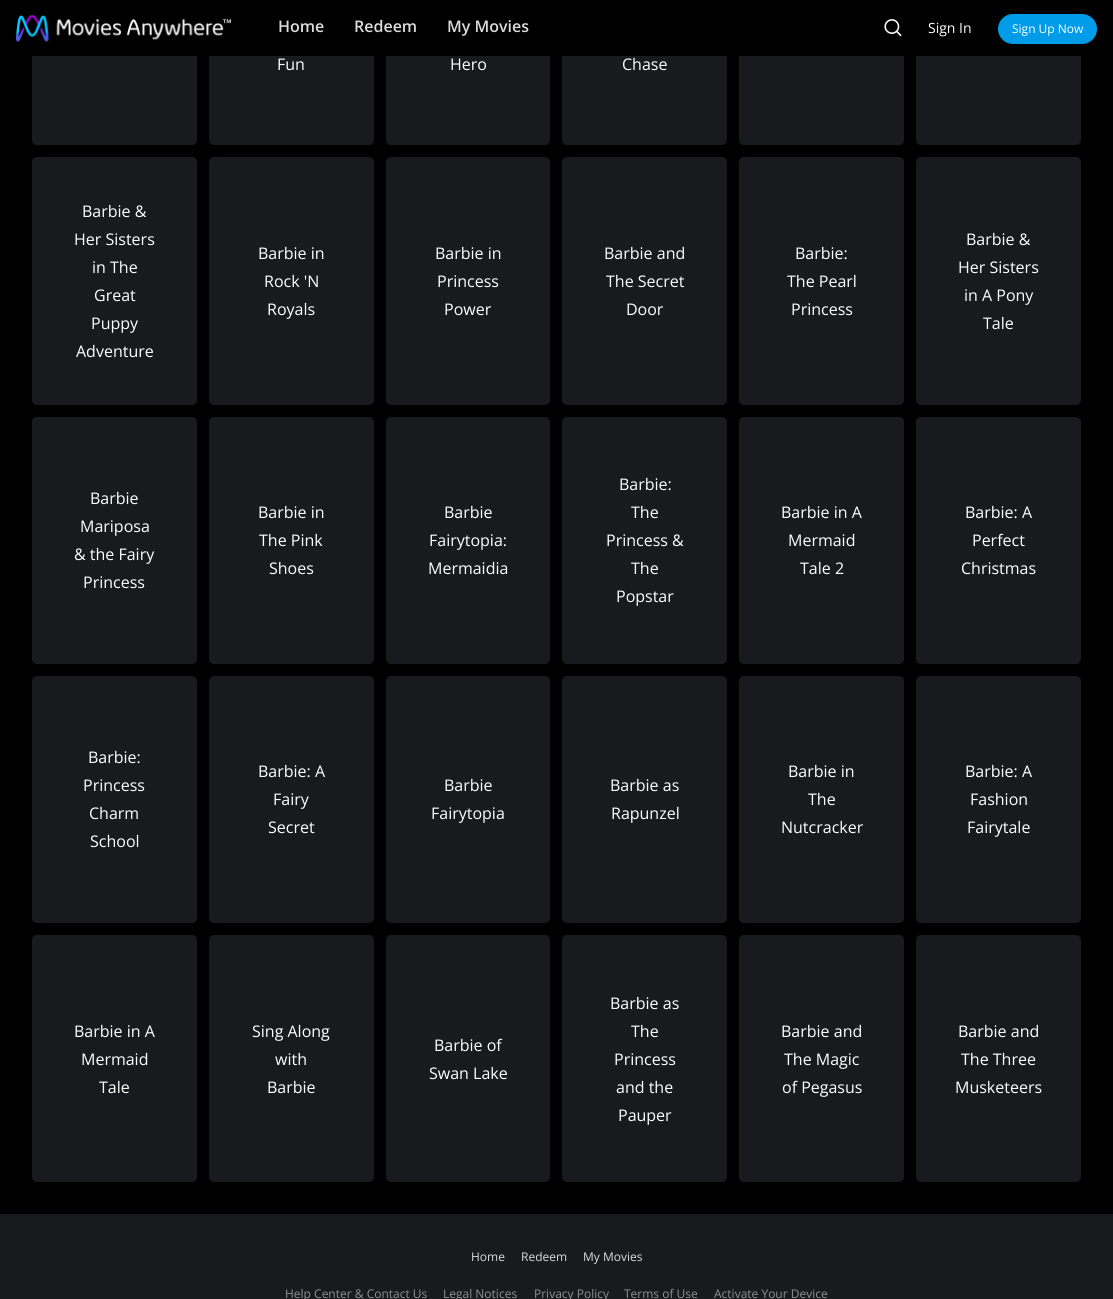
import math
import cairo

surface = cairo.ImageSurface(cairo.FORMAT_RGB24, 1113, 1299)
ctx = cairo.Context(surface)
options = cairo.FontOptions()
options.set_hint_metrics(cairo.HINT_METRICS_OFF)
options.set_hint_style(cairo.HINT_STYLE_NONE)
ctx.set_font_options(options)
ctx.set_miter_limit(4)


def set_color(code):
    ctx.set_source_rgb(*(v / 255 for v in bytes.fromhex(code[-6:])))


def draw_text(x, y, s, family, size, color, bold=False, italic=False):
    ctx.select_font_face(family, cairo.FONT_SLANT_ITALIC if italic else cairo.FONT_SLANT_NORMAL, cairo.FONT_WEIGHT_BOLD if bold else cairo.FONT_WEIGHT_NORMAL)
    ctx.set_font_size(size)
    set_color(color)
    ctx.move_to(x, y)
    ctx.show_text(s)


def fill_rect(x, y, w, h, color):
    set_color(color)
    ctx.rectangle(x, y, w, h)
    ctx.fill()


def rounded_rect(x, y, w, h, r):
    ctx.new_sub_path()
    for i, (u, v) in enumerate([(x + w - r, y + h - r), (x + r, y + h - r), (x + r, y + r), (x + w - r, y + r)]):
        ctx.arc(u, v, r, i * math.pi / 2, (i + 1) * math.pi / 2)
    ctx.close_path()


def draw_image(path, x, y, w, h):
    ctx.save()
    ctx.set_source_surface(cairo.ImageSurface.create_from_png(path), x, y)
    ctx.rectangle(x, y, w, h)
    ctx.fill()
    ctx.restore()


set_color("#000000")
ctx.paint()
set_color("#181a1d")
rounded_rect(32, -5, 165, 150, 5)
ctx.fill()
rounded_rect(209, -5, 165, 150, 5)
ctx.fill()
rounded_rect(386, -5, 164, 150, 5)
ctx.fill()
rounded_rect(562, -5, 165, 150, 5)
ctx.fill()
rounded_rect(739, -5, 165, 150, 5)
ctx.fill()
rounded_rect(916, -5, 165, 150, 5)
ctx.fill()
fill_rect(32, 0, 1049, 56, "#000000")
draw_image("assets/img1.png", 16, 15, 215, 27)
draw_text(278, 32, "Home", "Open Sans SemiBold", 16, "#dcdcdc")
draw_text(354, 32, "Redeem", "Open Sans SemiBold", 16, "#dcdcdc")
draw_text(447, 32, "My Movies", "Open Sans SemiBold", 16, "#dcdcdc")
draw_image("assets/img2.png", 884, 19, 18, 18)
draw_text(928, 33, "Sign In", "Open Sans", 14, "#ffffff")
set_color("#009cea")
rounded_rect(998, 14, 99, 30, 15)
ctx.fill()
draw_text(1012, 33, "Sign Up Now", "Open Sans", 12, "#ffffff")
draw_text(277, 70, "Fun", "Open Sans", 16, "#ffffff")
draw_text(450, 70, "Hero", "Open Sans", 16, "#ffffff")
draw_text(622, 70, "Chase", "Open Sans", 16, "#ffffff")
set_color("#181a1d")
rounded_rect(32, 157, 165, 248, 5)
ctx.fill()
draw_text(82, 217, "Barbie &", "Open Sans", 16, "#ffffff")
draw_text(74, 245, "Her Sisters", "Open Sans", 16, "#ffffff")
draw_text(92, 273, "in The", "Open Sans", 16, "#ffffff")
draw_text(94, 301, "Great", "Open Sans", 16, "#ffffff")
draw_text(91, 329, "Puppy", "Open Sans", 16, "#ffffff")
draw_text(76, 357, "Adventure", "Open Sans", 16, "#ffffff")
set_color("#181a1d")
rounded_rect(209, 157, 165, 248, 5)
ctx.fill()
draw_text(258, 259, "Barbie in", "Open Sans", 16, "#ffffff")
draw_text(264, 287, "Rock 'N", "Open Sans", 16, "#ffffff")
draw_text(267, 315, "Royals", "Open Sans", 16, "#ffffff")
set_color("#181a1d")
rounded_rect(386, 157, 164, 248, 5)
ctx.fill()
draw_text(435, 259, "Barbie in", "Open Sans", 16, "#ffffff")
draw_text(437, 287, "Princess", "Open Sans", 16, "#ffffff")
draw_text(444, 315, "Power", "Open Sans", 16, "#ffffff")
set_color("#181a1d")
rounded_rect(562, 157, 165, 248, 5)
ctx.fill()
draw_text(604, 259, "Barbie and", "Open Sans", 16, "#ffffff")
draw_text(606, 287, "The Secret", "Open Sans", 16, "#ffffff")
draw_text(626, 315, "Door", "Open Sans", 16, "#ffffff")
set_color("#181a1d")
rounded_rect(739, 157, 165, 248, 5)
ctx.fill()
draw_text(795, 259, "Barbie:", "Open Sans", 16, "#ffffff")
draw_text(787, 287, "The Pearl", "Open Sans", 16, "#ffffff")
draw_text(791, 315, "Princess", "Open Sans", 16, "#ffffff")
set_color("#181a1d")
rounded_rect(916, 157, 165, 248, 5)
ctx.fill()
draw_text(966, 245, "Barbie &", "Open Sans", 16, "#ffffff")
draw_text(958, 273, "Her Sisters", "Open Sans", 16, "#ffffff")
draw_text(964, 301, "in A Pony", "Open Sans", 16, "#ffffff")
draw_text(983, 329, "Tale", "Open Sans", 16, "#ffffff")
set_color("#181a1d")
rounded_rect(32, 417, 165, 247, 5)
ctx.fill()
draw_text(90, 504, "Barbie", "Open Sans", 16, "#ffffff")
draw_text(80, 532, "Mariposa", "Open Sans", 16, "#ffffff")
draw_text(74, 560, "& the Fairy", "Open Sans", 16, "#ffffff")
draw_text(83, 588, "Princess", "Open Sans", 16, "#ffffff")
set_color("#181a1d")
rounded_rect(209, 417, 165, 247, 5)
ctx.fill()
draw_text(258, 518, "Barbie in", "Open Sans", 16, "#ffffff")
draw_text(259, 546, "The Pink", "Open Sans", 16, "#ffffff")
draw_text(269, 574, "Shoes", "Open Sans", 16, "#ffffff")
set_color("#181a1d")
rounded_rect(386, 417, 164, 247, 5)
ctx.fill()
draw_text(444, 518, "Barbie", "Open Sans", 16, "#ffffff")
draw_text(429, 546, "Fairytopia:", "Open Sans", 16, "#ffffff")
draw_text(428, 574, "Mermaidia", "Open Sans", 16, "#ffffff")
set_color("#181a1d")
rounded_rect(562, 417, 165, 247, 5)
ctx.fill()
draw_text(619, 490, "Barbie:", "Open Sans", 16, "#ffffff")
draw_text(631, 518, "The", "Open Sans", 16, "#ffffff")
draw_text(606, 546, "Princess &", "Open Sans", 16, "#ffffff")
draw_text(631, 574, "The", "Open Sans", 16, "#ffffff")
draw_text(616, 602, "Popstar", "Open Sans", 16, "#ffffff")
set_color("#181a1d")
rounded_rect(739, 417, 165, 247, 5)
ctx.fill()
draw_text(781, 518, "Barbie in A", "Open Sans", 16, "#ffffff")
draw_text(788, 546, "Mermaid", "Open Sans", 16, "#ffffff")
draw_text(800, 574, "Tale 2", "Open Sans", 16, "#ffffff")
set_color("#181a1d")
rounded_rect(916, 417, 165, 247, 5)
ctx.fill()
draw_text(965, 518, "Barbie: A", "Open Sans", 16, "#ffffff")
draw_text(972, 546, "Perfect", "Open Sans", 16, "#ffffff")
draw_text(961, 574, "Christmas", "Open Sans", 16, "#ffffff")
set_color("#181a1d")
rounded_rect(32, 676, 165, 247, 5)
ctx.fill()
draw_text(88, 763, "Barbie:", "Open Sans", 16, "#ffffff")
draw_text(83, 791, "Princess", "Open Sans", 16, "#ffffff")
draw_text(89, 819, "Charm", "Open Sans", 16, "#ffffff")
draw_text(90, 847, "School", "Open Sans", 16, "#ffffff")
set_color("#181a1d")
rounded_rect(209, 676, 165, 247, 5)
ctx.fill()
draw_text(258, 777, "Barbie: A", "Open Sans", 16, "#ffffff")
draw_text(273, 805, "Fairy", "Open Sans", 16, "#ffffff")
draw_text(268, 833, "Secret", "Open Sans", 16, "#ffffff")
set_color("#181a1d")
rounded_rect(386, 676, 164, 247, 5)
ctx.fill()
draw_text(444, 791, "Barbie", "Open Sans", 16, "#ffffff")
draw_text(431, 819, "Fairytopia", "Open Sans", 16, "#ffffff")
set_color("#181a1d")
rounded_rect(562, 676, 165, 247, 5)
ctx.fill()
draw_text(610, 791, "Barbie as", "Open Sans", 16, "#ffffff")
draw_text(611, 819, "Rapunzel", "Open Sans", 16, "#ffffff")
set_color("#181a1d")
rounded_rect(739, 676, 165, 247, 5)
ctx.fill()
draw_text(788, 777, "Barbie in", "Open Sans", 16, "#ffffff")
draw_text(808, 805, "The", "Open Sans", 16, "#ffffff")
draw_text(781, 833, "Nutcracker", "Open Sans", 16, "#ffffff")
set_color("#181a1d")
rounded_rect(916, 676, 165, 247, 5)
ctx.fill()
draw_text(965, 777, "Barbie: A", "Open Sans", 16, "#ffffff")
draw_text(970, 805, "Fashion", "Open Sans", 16, "#ffffff")
draw_text(967, 833, "Fairytale", "Open Sans", 16, "#ffffff")
set_color("#181a1d")
rounded_rect(32, 935, 165, 247, 5)
ctx.fill()
draw_text(74, 1037, "Barbie in A", "Open Sans", 16, "#ffffff")
draw_text(81, 1065, "Mermaid", "Open Sans", 16, "#ffffff")
draw_text(99, 1093, "Tale", "Open Sans", 16, "#ffffff")
set_color("#181a1d")
rounded_rect(209, 935, 165, 247, 5)
ctx.fill()
draw_text(252, 1037, "Sing Along", "Open Sans", 16, "#ffffff")
draw_text(275, 1065, "with", "Open Sans", 16, "#ffffff")
draw_text(267, 1093, "Barbie", "Open Sans", 16, "#ffffff")
set_color("#181a1d")
rounded_rect(386, 935, 164, 247, 5)
ctx.fill()
draw_text(434, 1051, "Barbie of", "Open Sans", 16, "#ffffff")
draw_text(429, 1079, "Swan Lake", "Open Sans", 16, "#ffffff")
set_color("#181a1d")
rounded_rect(562, 935, 165, 247, 5)
ctx.fill()
draw_text(610, 1009, "Barbie as", "Open Sans", 16, "#ffffff")
draw_text(631, 1037, "The", "Open Sans", 16, "#ffffff")
draw_text(614, 1065, "Princess", "Open Sans", 16, "#ffffff")
draw_text(616, 1093, "and the", "Open Sans", 16, "#ffffff")
draw_text(618, 1121, "Pauper", "Open Sans", 16, "#ffffff")
set_color("#181a1d")
rounded_rect(739, 935, 165, 247, 5)
ctx.fill()
draw_text(781, 1037, "Barbie and", "Open Sans", 16, "#ffffff")
draw_text(784, 1065, "The Magic", "Open Sans", 16, "#ffffff")
draw_text(782, 1093, "of Pegasus", "Open Sans", 16, "#ffffff")
set_color("#181a1d")
rounded_rect(916, 935, 165, 247, 5)
ctx.fill()
draw_text(958, 1037, "Barbie and", "Open Sans", 16, "#ffffff")
draw_text(961, 1065, "The Three", "Open Sans", 16, "#ffffff")
draw_text(955, 1093, "Musketeers", "Open Sans", 16, "#ffffff")
fill_rect(0, 1214, 1113, 85, "#181a1d")
draw_text(471, 1261, "Home", "Open Sans", 12, "#dcdcdc")
draw_text(521, 1261, "Redeem", "Open Sans", 12, "#dcdcdc")
draw_text(583, 1261, "My Movies", "Open Sans", 12, "#dcdcdc")
draw_text(285, 1298, "Help Center & Contact Us", "Open Sans", 12, "#909090")
draw_text(443, 1298, "Legal Notices", "Open Sans", 12, "#909090")
draw_text(534, 1298, "Privacy Policy", "Open Sans", 12, "#909090")
draw_text(624, 1298, "Terms of Use", "Open Sans", 12, "#909090")
draw_text(714, 1298, "Activate Your Device", "Open Sans", 12, "#909090")
surface.write_to_png("output.png")
